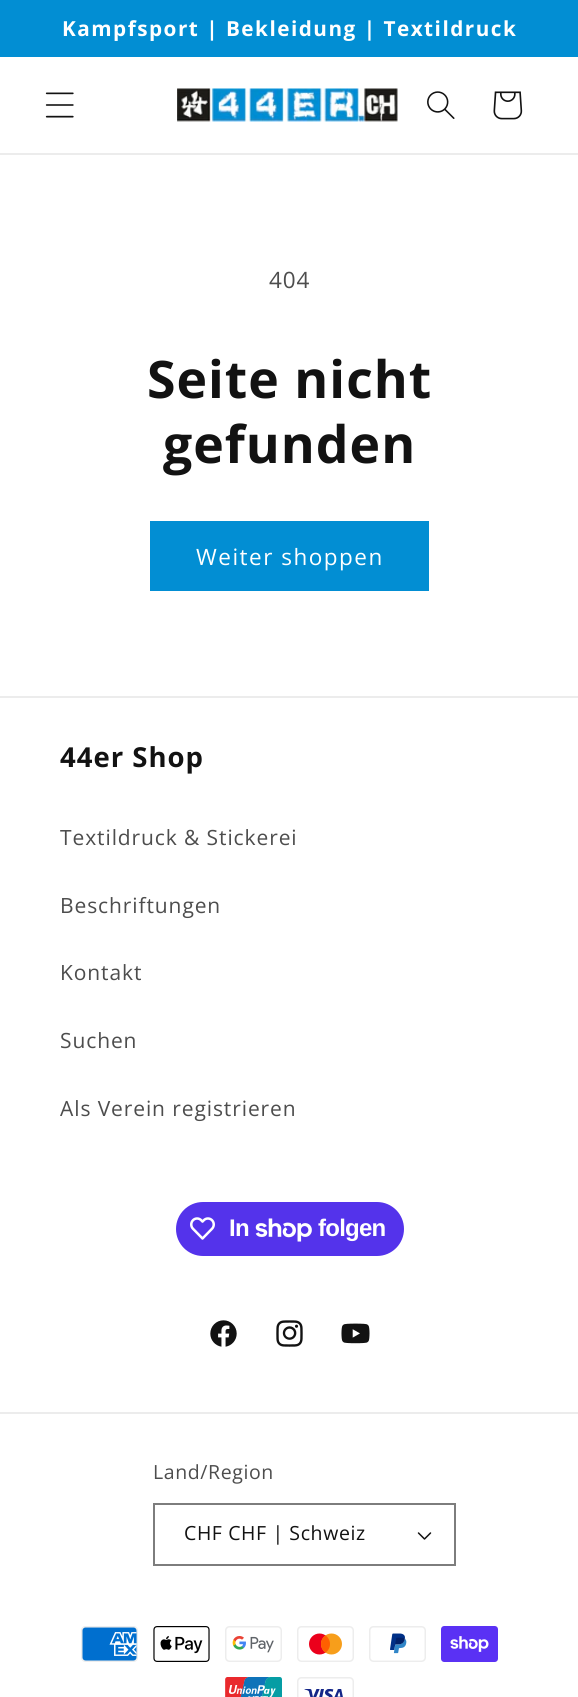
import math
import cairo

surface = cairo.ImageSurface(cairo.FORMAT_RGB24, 578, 1697)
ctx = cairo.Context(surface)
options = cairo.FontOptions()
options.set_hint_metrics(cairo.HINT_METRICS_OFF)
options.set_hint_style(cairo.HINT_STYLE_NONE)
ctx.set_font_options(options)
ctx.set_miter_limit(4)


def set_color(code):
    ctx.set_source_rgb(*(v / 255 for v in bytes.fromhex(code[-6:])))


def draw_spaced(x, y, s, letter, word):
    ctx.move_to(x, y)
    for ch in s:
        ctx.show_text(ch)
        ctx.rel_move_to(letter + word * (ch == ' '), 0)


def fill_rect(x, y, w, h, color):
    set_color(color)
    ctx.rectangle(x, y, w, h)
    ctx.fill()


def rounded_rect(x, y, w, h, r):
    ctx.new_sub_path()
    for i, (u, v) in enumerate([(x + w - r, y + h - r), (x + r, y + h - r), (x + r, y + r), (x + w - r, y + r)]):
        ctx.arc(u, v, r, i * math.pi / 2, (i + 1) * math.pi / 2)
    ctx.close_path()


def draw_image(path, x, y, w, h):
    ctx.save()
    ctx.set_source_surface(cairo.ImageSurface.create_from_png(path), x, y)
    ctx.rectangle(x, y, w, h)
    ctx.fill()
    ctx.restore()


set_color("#ffffff")
ctx.paint()
fill_rect(0, 0, 578, 57, "#028ed3")
ctx.select_font_face("Open Sans", cairo.FONT_SLANT_NORMAL, cairo.FONT_WEIGHT_BOLD)
ctx.set_font_size(20.7)
set_color("#ffffff")
draw_spaced(62, 36, "Kampfsport | Bekleidung | Textildruck", 1.5, 0)
fill_rect(0, 153, 578, 2, "#ececec")
draw_image("assets/img1.png", 45, 92, 29, 26)
draw_image("assets/img2.png", 177, 88, 221, 34)
draw_image("assets/img3.png", 427, 91, 28, 28)
draw_image("assets/img4.png", 493, 91, 30, 29)
ctx.select_font_face("Open Sans")
ctx.set_font_size(22.5)
set_color("#4d4d4d")
draw_spaced(269, 288, "404", 0.9, 0)
ctx.select_font_face("Open Sans", cairo.FONT_SLANT_NORMAL, cairo.FONT_WEIGHT_BOLD)
ctx.set_font_size(51.75)
set_color("#121212")
draw_spaced(147, 398, "Seite nicht", 1, 0)
draw_spaced(163, 463, "gefunden", 1, 0)
fill_rect(150, 521, 279, 70, "#028ed3")
ctx.select_font_face("Open Sans")
ctx.set_font_size(22.5)
set_color("#ffffff")
draw_spaced(196, 565, "Weiter shoppen", 1.5, 0)
fill_rect(0, 696, 578, 2, "#ececec")
ctx.select_font_face("Open Sans", cairo.FONT_SLANT_NORMAL, cairo.FONT_WEIGHT_BOLD)
ctx.set_font_size(27.5)
set_color("#121212")
draw_spaced(60, 767, "44er Shop", 1, 0)
ctx.select_font_face("Open Sans")
ctx.set_font_size(21)
set_color("#4d4d4d")
draw_spaced(60, 845, "Textildruck & Stickerei", 0.9, 0)
draw_spaced(60, 913, "Beschriftungen", 0.9, 0)
draw_spaced(60, 980, "Kontakt", 0.9, 0)
draw_spaced(60, 1048, "Suchen", 0.9, 0)
draw_spaced(60, 1116, "Als Verein registrieren", 0.9, 0)
set_color("#5433eb")
rounded_rect(176, 1202, 228, 54, 27)
ctx.fill()
draw_image("assets/img5.png", 190, 1217, 25, 23)
ctx.select_font_face("Liberation Sans", cairo.FONT_SLANT_NORMAL, cairo.FONT_WEIGHT_BOLD)
ctx.set_font_size(24)
set_color("#ffffff")
draw_spaced(229, 1236, "In", -0.75, 0)
draw_image("assets/img6.png", 255, 1218, 57, 24)
draw_spaced(318, 1236, "folgen", -0.75, 0)
draw_image("assets/img7.png", 210, 1320, 27, 27)
draw_image("assets/img8.png", 276, 1320, 27, 27)
draw_image("assets/img9.png", 341, 1323, 29, 21)
fill_rect(0, 1412, 578, 2, "#ececec")
ctx.select_font_face("Open Sans")
ctx.set_font_size(19.5)
set_color("#4d4d4d")
draw_spaced(153, 1479, "Land/Region", 0.6, 0)
draw_image("assets/img10.png", 417, 1532, 15, 8)
ctx.rectangle(154, 1504, 301, 61)
set_color("#7d7d7d")
ctx.stroke()
set_color("#121212")
draw_spaced(184, 1540, "CHF CHF | Schweiz", 0.6, 0)
draw_image("assets/img11.png", 81, 1626, 57, 36)
draw_image("assets/img12.png", 153, 1626, 57, 36)
draw_image("assets/img13.png", 225, 1626, 57, 36)
draw_image("assets/img14.png", 297, 1626, 57, 36)
draw_image("assets/img15.png", 369, 1626, 57, 36)
draw_image("assets/img16.png", 441, 1626, 57, 36)
draw_image("assets/img17.png", 225, 1677, 57, 20)
draw_image("assets/img18.png", 297, 1677, 57, 20)
surface.write_to_png("output.png")
